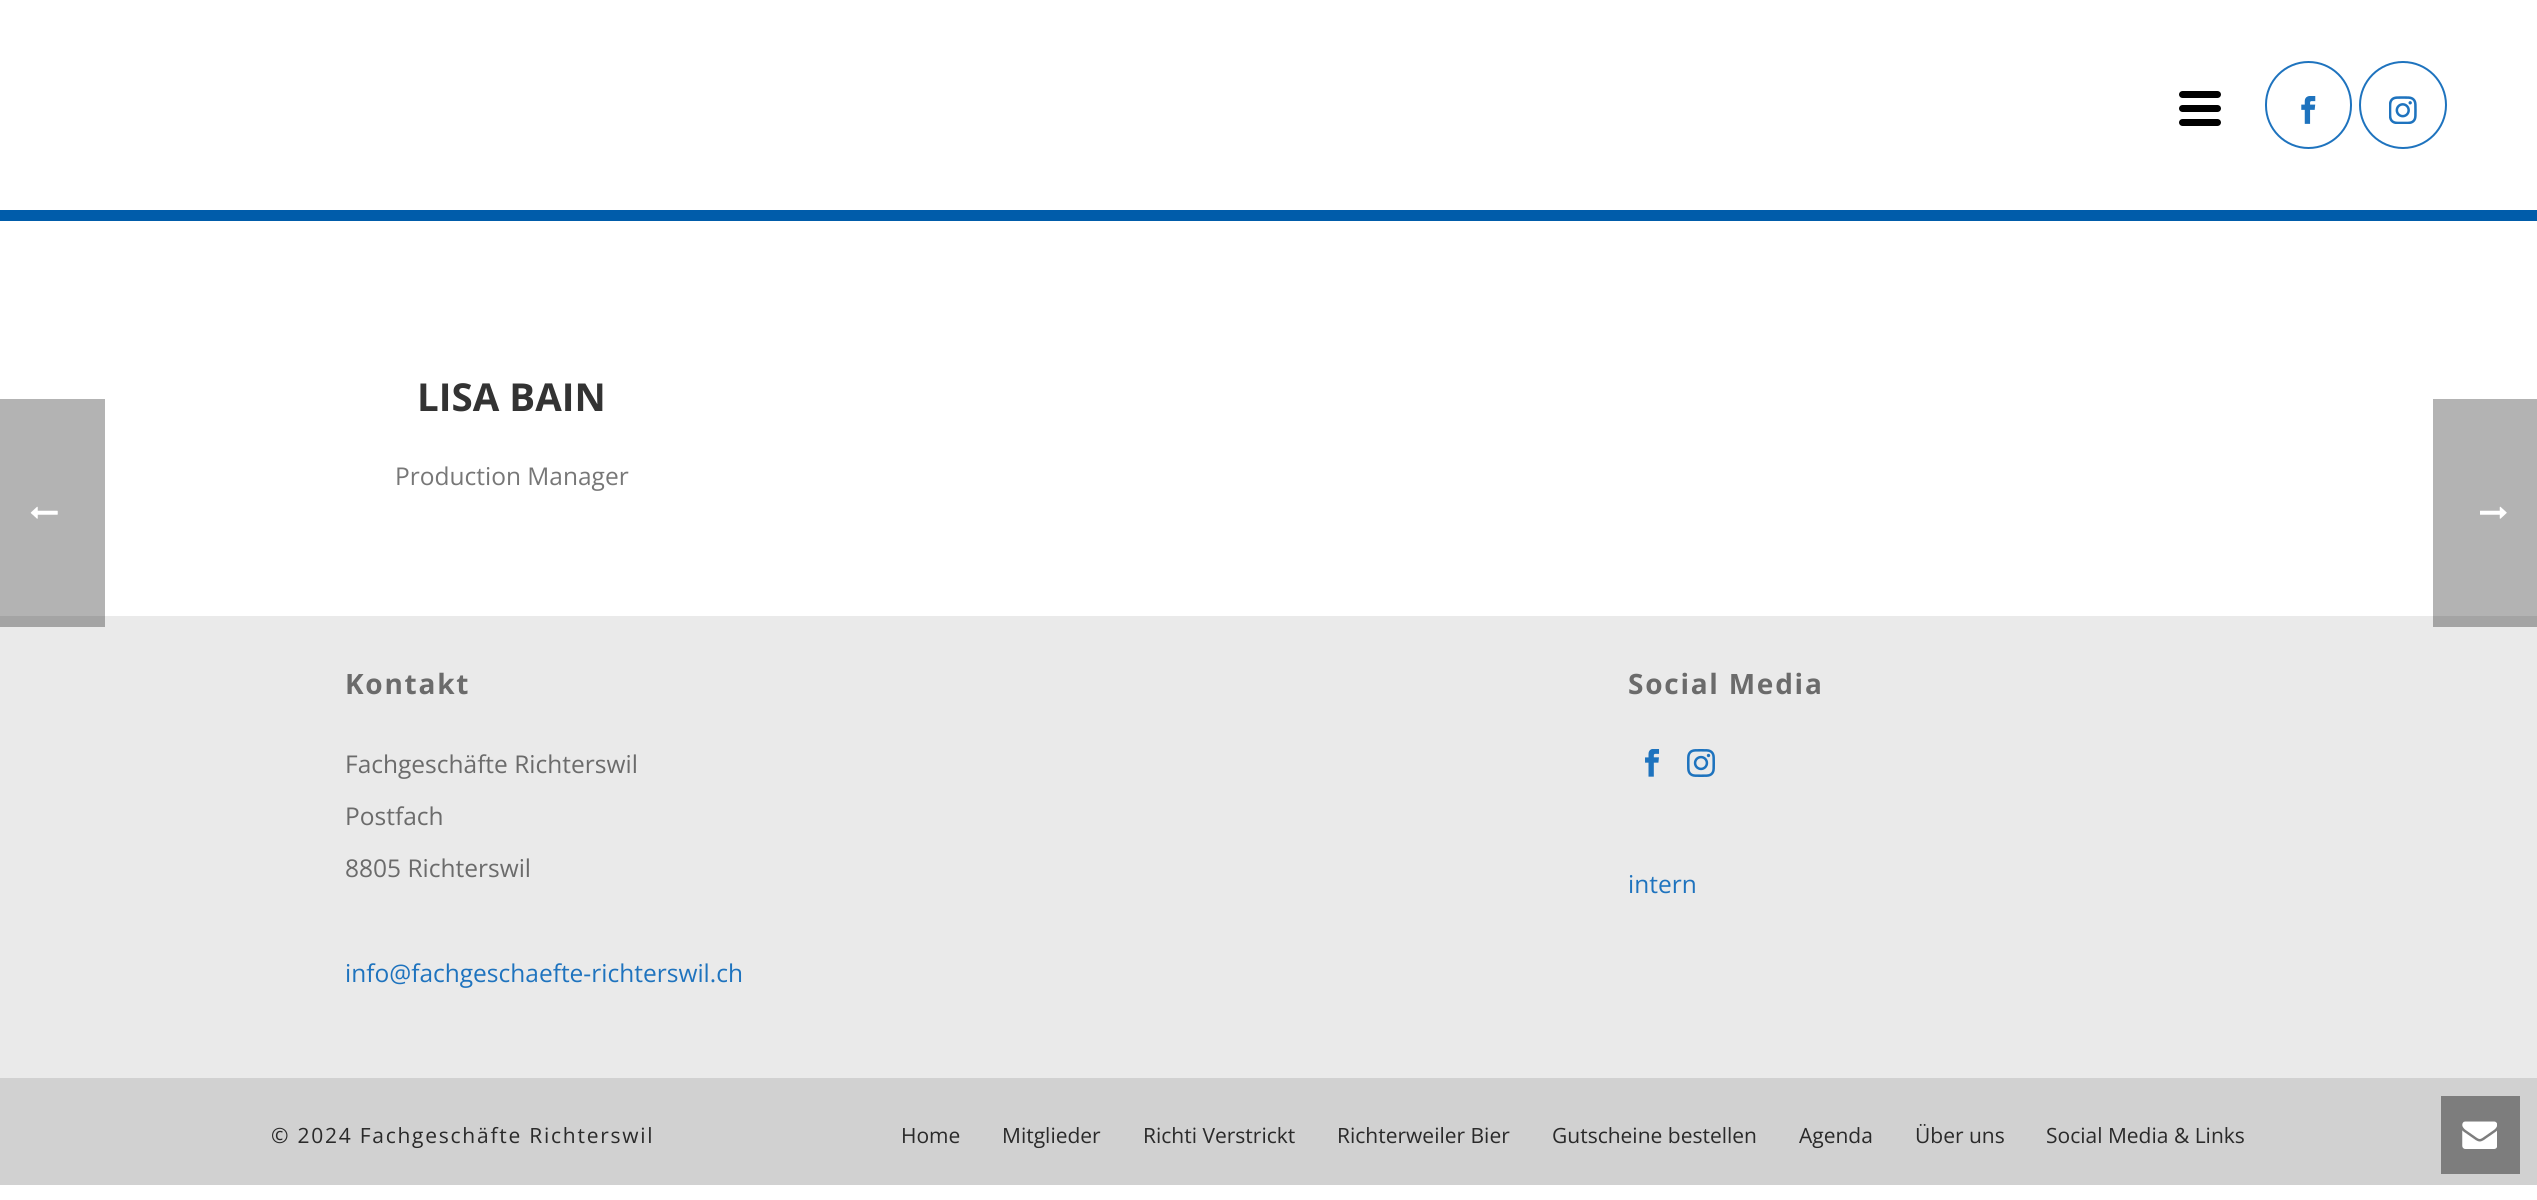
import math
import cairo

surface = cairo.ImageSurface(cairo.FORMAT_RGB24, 2537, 1200)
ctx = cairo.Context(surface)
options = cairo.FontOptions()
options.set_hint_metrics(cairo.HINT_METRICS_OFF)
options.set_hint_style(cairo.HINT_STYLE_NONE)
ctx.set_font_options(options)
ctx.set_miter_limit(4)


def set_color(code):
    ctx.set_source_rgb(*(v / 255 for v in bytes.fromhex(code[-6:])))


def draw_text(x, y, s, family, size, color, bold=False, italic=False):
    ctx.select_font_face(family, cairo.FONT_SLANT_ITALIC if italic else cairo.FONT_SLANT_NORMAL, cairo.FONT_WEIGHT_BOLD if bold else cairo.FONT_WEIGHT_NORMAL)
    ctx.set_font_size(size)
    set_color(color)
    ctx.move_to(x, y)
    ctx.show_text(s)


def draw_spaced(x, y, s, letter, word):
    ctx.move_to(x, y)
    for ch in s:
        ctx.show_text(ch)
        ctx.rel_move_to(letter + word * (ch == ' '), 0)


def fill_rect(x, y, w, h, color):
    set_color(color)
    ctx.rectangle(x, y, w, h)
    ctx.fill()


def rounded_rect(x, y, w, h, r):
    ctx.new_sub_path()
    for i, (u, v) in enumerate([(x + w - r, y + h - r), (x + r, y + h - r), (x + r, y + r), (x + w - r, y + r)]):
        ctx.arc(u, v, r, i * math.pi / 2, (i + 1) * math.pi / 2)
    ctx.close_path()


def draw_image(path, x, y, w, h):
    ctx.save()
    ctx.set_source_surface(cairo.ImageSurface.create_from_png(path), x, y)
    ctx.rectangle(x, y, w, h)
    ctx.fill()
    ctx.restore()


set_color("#ffffff")
ctx.paint()
fill_rect(2433, 399, 104, 217, "#b3b3b3")
fill_rect(0, 399, 105, 217, "#b3b3b3")
draw_image("assets/img1.png", 30, 506, 28, 13)
fill_rect(0, 210, 2537, 11, "#005caa")
set_color("#000000")
rounded_rect(2179, 91, 42, 7, 3.5)
ctx.fill()
rounded_rect(2179, 105, 42, 7, 3.5)
ctx.fill()
rounded_rect(2179, 119, 42, 7, 3.5)
ctx.fill()
rounded_rect(2266, 62, 85, 86, 42.5)
set_color("#1e73be")
ctx.stroke()
draw_image("assets/img2.png", 2301, 96, 15, 28)
ctx.arc(2403, 105, 43, 0, 2 * math.pi)
ctx.stroke()
draw_image("assets/img3.png", 2389, 96, 28, 28)
draw_text(417, 411, "LISA BAIN", "Open Sans", 38.5, "#333333", bold=True)
draw_text(395, 485, "Production Manager", "Open Sans", 24.5, "#777777")
fill_rect(0, 616, 2537, 462, "#eaeaea")
fill_rect(2433, 616, 104, 11, "#a4a4a4")
fill_rect(0, 616, 105, 11, "#a4a4a4")
ctx.select_font_face("Open Sans", cairo.FONT_SLANT_NORMAL, cairo.FONT_WEIGHT_BOLD)
ctx.set_font_size(28)
set_color("#6b6b6b")
draw_spaced(345, 694, "Kontakt", 1.75, 0)
draw_text(345, 773, "Fachgeschäfte Richterswil", "Open Sans", 24.5, "#6b6b6b")
draw_text(345, 825, "Postfach", "Open Sans", 24.5, "#6b6b6b")
draw_text(345, 877, "8805 Richterswil", "Open Sans", 24.5, "#6b6b6b")
draw_text(345, 982, "info@fachgeschaefte-richterswil.ch", "Open Sans", 24.5, "#1e73be")
ctx.select_font_face("Open Sans", cairo.FONT_SLANT_NORMAL, cairo.FONT_WEIGHT_BOLD)
ctx.set_font_size(28)
set_color("#6b6b6b")
draw_spaced(1628, 694, "Social Media", 1.75, 0)
draw_image("assets/img4.png", 1645, 749, 15, 28)
draw_image("assets/img5.png", 1687, 749, 28, 28)
draw_text(1628, 893, "intern", "Open Sans", 24.5, "#1e73be")
fill_rect(0, 1078, 2537, 107, "#d1d1d1")
ctx.set_font_size(21)
set_color("#2a2a2a")
draw_spaced(271, 1143, "© 2024 Fachgeschäfte Richterswil", 1.75, 0)
draw_text(901, 1143, "Home", "Open Sans", 21, "#2a2a2a")
draw_text(1002, 1143, "Mitglieder", "Open Sans", 21, "#2a2a2a")
draw_text(1143, 1143, "Richti Verstrickt", "Open Sans", 21, "#2a2a2a")
draw_text(1337, 1143, "Richterweiler Bier", "Open Sans", 21, "#2a2a2a")
draw_text(1552, 1143, "Gutscheine bestellen", "Open Sans", 21, "#2a2a2a")
draw_text(1799, 1143, "Agenda", "Open Sans", 21, "#2a2a2a")
draw_text(1915, 1143, "Über uns", "Open Sans", 21, "#2a2a2a")
draw_text(2046, 1143, "Social Media & Links", "Open Sans", 21, "#2a2a2a")
draw_image("assets/img6.png", 2480, 506, 27, 13)
fill_rect(2441, 1096, 79, 78, "#7d7d7d")
draw_image("assets/img7.png", 2462, 1121, 35, 28)
surface.write_to_png("output.png")
